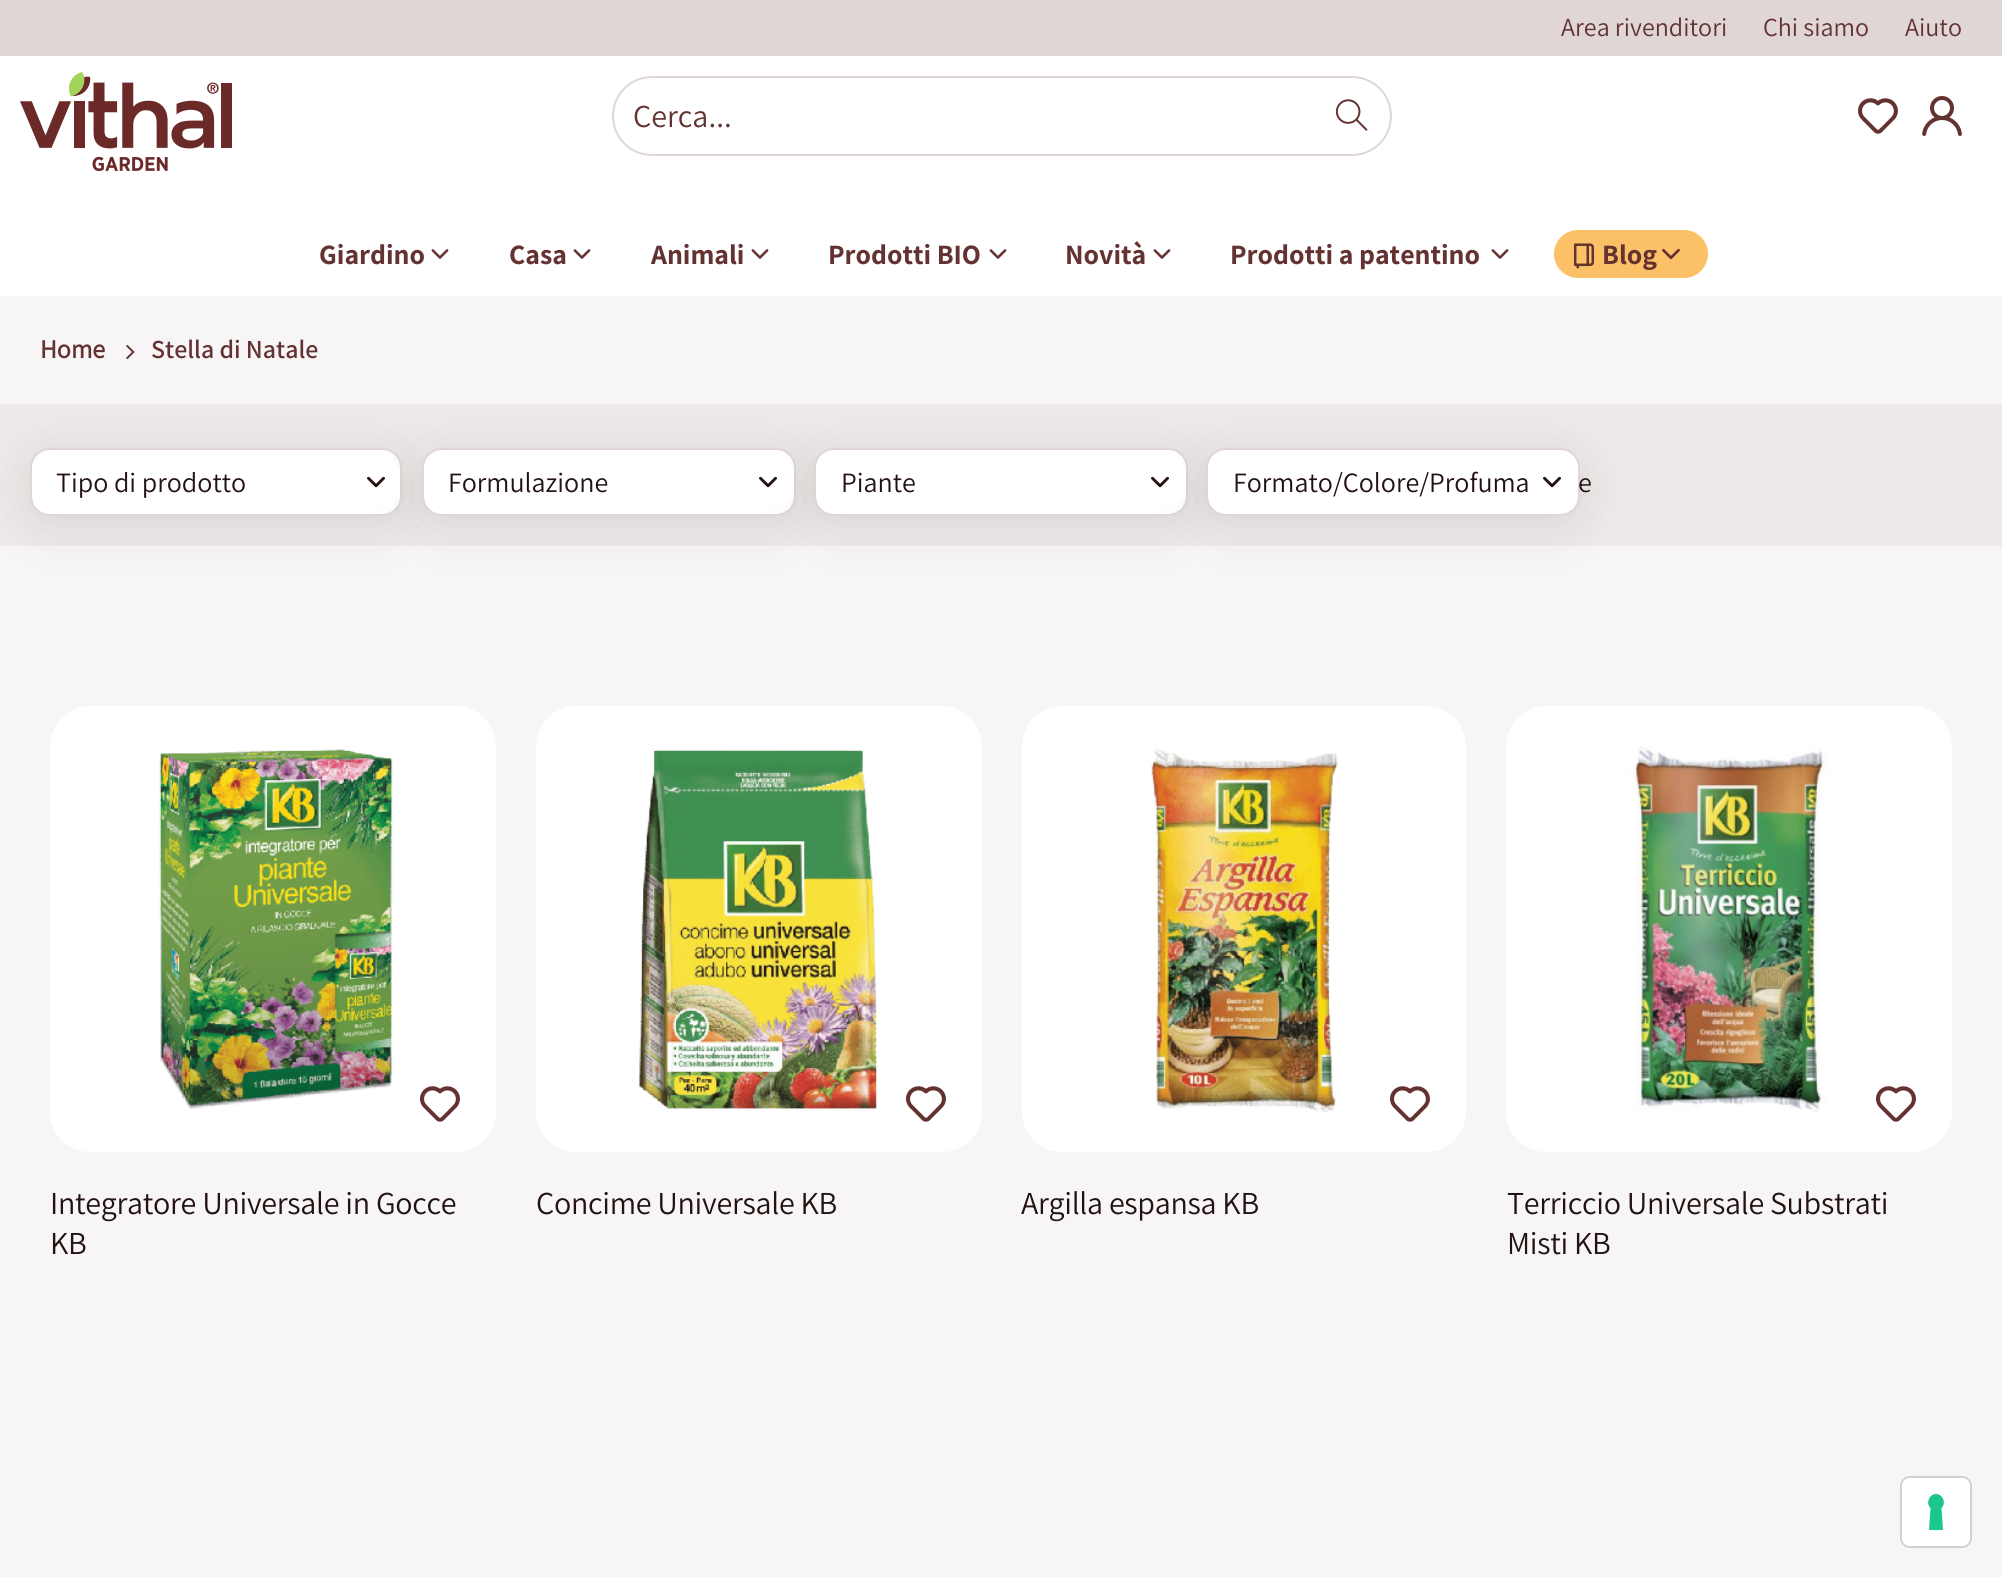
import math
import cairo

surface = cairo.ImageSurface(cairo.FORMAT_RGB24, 2002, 1577)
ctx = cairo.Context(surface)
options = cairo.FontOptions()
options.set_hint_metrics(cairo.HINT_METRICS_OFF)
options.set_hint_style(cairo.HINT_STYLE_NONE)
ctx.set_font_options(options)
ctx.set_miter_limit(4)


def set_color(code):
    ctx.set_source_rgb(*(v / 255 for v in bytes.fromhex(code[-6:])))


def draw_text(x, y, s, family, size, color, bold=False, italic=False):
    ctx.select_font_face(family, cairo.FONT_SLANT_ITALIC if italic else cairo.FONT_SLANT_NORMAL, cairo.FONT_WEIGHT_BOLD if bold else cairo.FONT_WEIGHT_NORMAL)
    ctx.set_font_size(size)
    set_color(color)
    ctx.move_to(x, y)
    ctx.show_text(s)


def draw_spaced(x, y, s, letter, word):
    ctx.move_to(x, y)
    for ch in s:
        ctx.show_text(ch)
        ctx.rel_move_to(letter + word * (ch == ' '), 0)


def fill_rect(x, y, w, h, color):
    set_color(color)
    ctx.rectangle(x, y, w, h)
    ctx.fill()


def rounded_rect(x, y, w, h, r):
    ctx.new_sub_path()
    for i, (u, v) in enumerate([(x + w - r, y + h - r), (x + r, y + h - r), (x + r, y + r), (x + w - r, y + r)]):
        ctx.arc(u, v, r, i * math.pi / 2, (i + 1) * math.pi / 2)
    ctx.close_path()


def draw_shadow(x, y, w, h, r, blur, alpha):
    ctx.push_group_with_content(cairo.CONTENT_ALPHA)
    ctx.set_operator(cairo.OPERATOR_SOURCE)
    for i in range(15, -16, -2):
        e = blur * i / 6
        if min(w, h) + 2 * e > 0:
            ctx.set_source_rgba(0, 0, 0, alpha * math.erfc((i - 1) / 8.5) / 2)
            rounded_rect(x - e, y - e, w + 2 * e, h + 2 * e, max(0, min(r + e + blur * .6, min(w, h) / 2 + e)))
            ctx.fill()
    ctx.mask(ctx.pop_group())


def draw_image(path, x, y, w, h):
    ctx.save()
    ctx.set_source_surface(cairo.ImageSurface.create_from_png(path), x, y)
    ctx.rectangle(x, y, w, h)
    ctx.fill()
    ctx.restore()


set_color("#f7f5f5")
ctx.paint()
fill_rect(0, 56, 2002, 240, "#ffffff")
fill_rect(0, 0, 2002, 56, "#e0d6d6")
draw_text(1561, 36, "Area rivenditori", "Assistant", 26, "#633231")
draw_text(1763, 36, "Chi siamo", "Assistant", 26, "#633231")
draw_text(1905, 36, "Aiuto", "Assistant", 26, "#633231")
draw_image("assets/img1.png", 20, 72, 212, 99)
rounded_rect(613, 77, 778, 78, 39)
set_color("#e0d6d6")
ctx.stroke()
draw_text(633, 127, "Cerca...", "Assistant", 32, "#633231")
draw_image("assets/img2.png", 1335, 99, 33, 32)
draw_image("assets/img3.png", 1858, 98, 40, 36)
draw_image("assets/img4.png", 1922, 96, 40, 40)
draw_image("assets/img5.png", 431, 249, 18, 10)
draw_text(319, 264, "Giardino", "Assistant", 28, "#633231", bold=True)
draw_image("assets/img5.png", 573, 249, 18, 10)
draw_text(509, 264, "Casa", "Assistant", 28, "#633231", bold=True)
draw_image("assets/img5.png", 751, 249, 18, 10)
draw_text(651, 264, "Animali", "Assistant", 28, "#633231", bold=True)
draw_image("assets/img5.png", 989, 249, 18, 10)
draw_text(828, 264, "Prodotti BIO", "Assistant", 28, "#633231", bold=True)
draw_image("assets/img5.png", 1153, 249, 18, 10)
draw_text(1065, 264, "Novità", "Assistant", 28, "#633231", bold=True)
draw_image("assets/img5.png", 1491, 249, 18, 10)
draw_text(1230, 264, "Prodotti a patentino", "Assistant", 28, "#633231", bold=True)
set_color("#fcc166")
rounded_rect(1554, 230, 154, 48, 24)
ctx.fill()
draw_image("assets/img6.png", 1573, 243, 22, 26)
draw_image("assets/img7.png", 1662, 248, 18, 12)
draw_text(1602, 264, "Blog", "Assistant", 28, "#633231", bold=True)
draw_text(40, 358, "Home", "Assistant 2", 26, "#633231", bold=True)
draw_image("assets/img8.png", 126, 344, 9, 16)
draw_text(151, 358, "Stella di Natale", "Assistant SemiBold", 26, "#633231")
fill_rect(0, 404, 2002, 142, "#efeaea")
set_color("#000000")
draw_shadow(30, 456, 372, 68, 20, 26, 0.1)
set_color("#ffffff")
rounded_rect(31, 449, 370, 66, 19)
ctx.fill_preserve()
set_color("#e0d6d6")
ctx.stroke()
draw_text(56, 492, "Tipo di prodotto", "Assistant", 28, "#241212")
set_color("#000000")
draw_shadow(422, 456, 374, 68, 20, 26, 0.1)
set_color("#ffffff")
rounded_rect(350, 456, 50, 50, 20)
ctx.fill()
draw_image("assets/img9.png", 367, 476, 18, 12)
rounded_rect(423, 449, 372, 66, 19)
ctx.fill_preserve()
set_color("#e0d6d6")
ctx.stroke()
draw_text(448, 492, "Formulazione", "Assistant", 28, "#241212")
set_color("#000000")
draw_shadow(814, 456, 374, 68, 20, 26, 0.1)
set_color("#ffffff")
rounded_rect(744, 456, 50, 50, 20)
ctx.fill()
draw_image("assets/img9.png", 759, 476, 18, 12)
rounded_rect(815, 449, 372, 66, 19)
ctx.fill_preserve()
set_color("#e0d6d6")
ctx.stroke()
draw_text(841, 492, "Piante", "Assistant", 28, "#241212")
set_color("#000000")
draw_shadow(1206, 456, 374, 68, 20, 26, 0.1)
set_color("#ffffff")
rounded_rect(1136, 456, 50, 50, 20)
ctx.fill()
draw_image("assets/img9.png", 1151, 476, 18, 12)
rounded_rect(1207, 449, 372, 66, 19)
ctx.fill_preserve()
set_color("#e0d6d6")
ctx.stroke()
draw_text(1233, 492, "Formato/Colore/Profuma", "Assistant", 28, "#241212")
draw_image("assets/img9.png", 1543, 476, 18, 12)
draw_text(1578, 492, "e", "Assistant", 28, "#241212")
set_color("#ffffff")
rounded_rect(50, 706, 446, 446, 40)
ctx.fill()
draw_image("assets/img10.png", 159, 749, 235, 360)
draw_image("assets/img3.png", 420, 1086, 40, 36)
ctx.set_font_size(32)
set_color("#241212")
draw_spaced(50, 1214, "Integratore Universale in Gocce", -0.3, 0)
draw_spaced(50, 1254, "KB", -0.3, 0)
set_color("#ffffff")
rounded_rect(536, 706, 446, 446, 40)
ctx.fill()
draw_image("assets/img11.png", 639, 749, 238, 361)
draw_image("assets/img3.png", 906, 1086, 40, 36)
set_color("#241212")
draw_spaced(536, 1214, "Concime Universale KB", -0.3, 0)
set_color("#ffffff")
rounded_rect(1022, 706, 444, 446, 40)
ctx.fill()
draw_image("assets/img12.png", 1151, 747, 187, 365)
draw_image("assets/img3.png", 1390, 1086, 40, 36)
set_color("#241212")
draw_spaced(1021, 1214, "Argilla espansa KB", -0.3, 0)
set_color("#ffffff")
rounded_rect(1506, 706, 446, 446, 40)
ctx.fill()
draw_image("assets/img13.png", 1625, 746, 207, 366)
draw_image("assets/img3.png", 1876, 1086, 40, 36)
set_color("#241212")
draw_spaced(1507, 1214, "Terriccio Universale Substrati", -0.3, 0)
draw_spaced(1507, 1254, "Misti KB", -0.3, 0)
rounded_rect(1901, 1477, 70, 70, 9)
set_color("#d2d0d0")
ctx.stroke()
set_color("#ffffff")
rounded_rect(1902, 1478, 68, 68, 8)
ctx.fill()
set_color("#1cc691")
ctx.set_fill_rule(cairo.FILL_RULE_EVEN_ODD)
ctx.new_path()
ctx.move_to(1936, 1494)
ctx.curve_to(1943, 1494, 1946.5, 1503.5, 1941.5, 1508)
ctx.line_to(1943, 1530)
ctx.line_to(1929, 1530)
ctx.line_to(1930.5, 1508)
ctx.curve_to(1925.5, 1503.5, 1929, 1494, 1936, 1494)
ctx.close_path()
ctx.fill()
surface.write_to_png("output.png")
